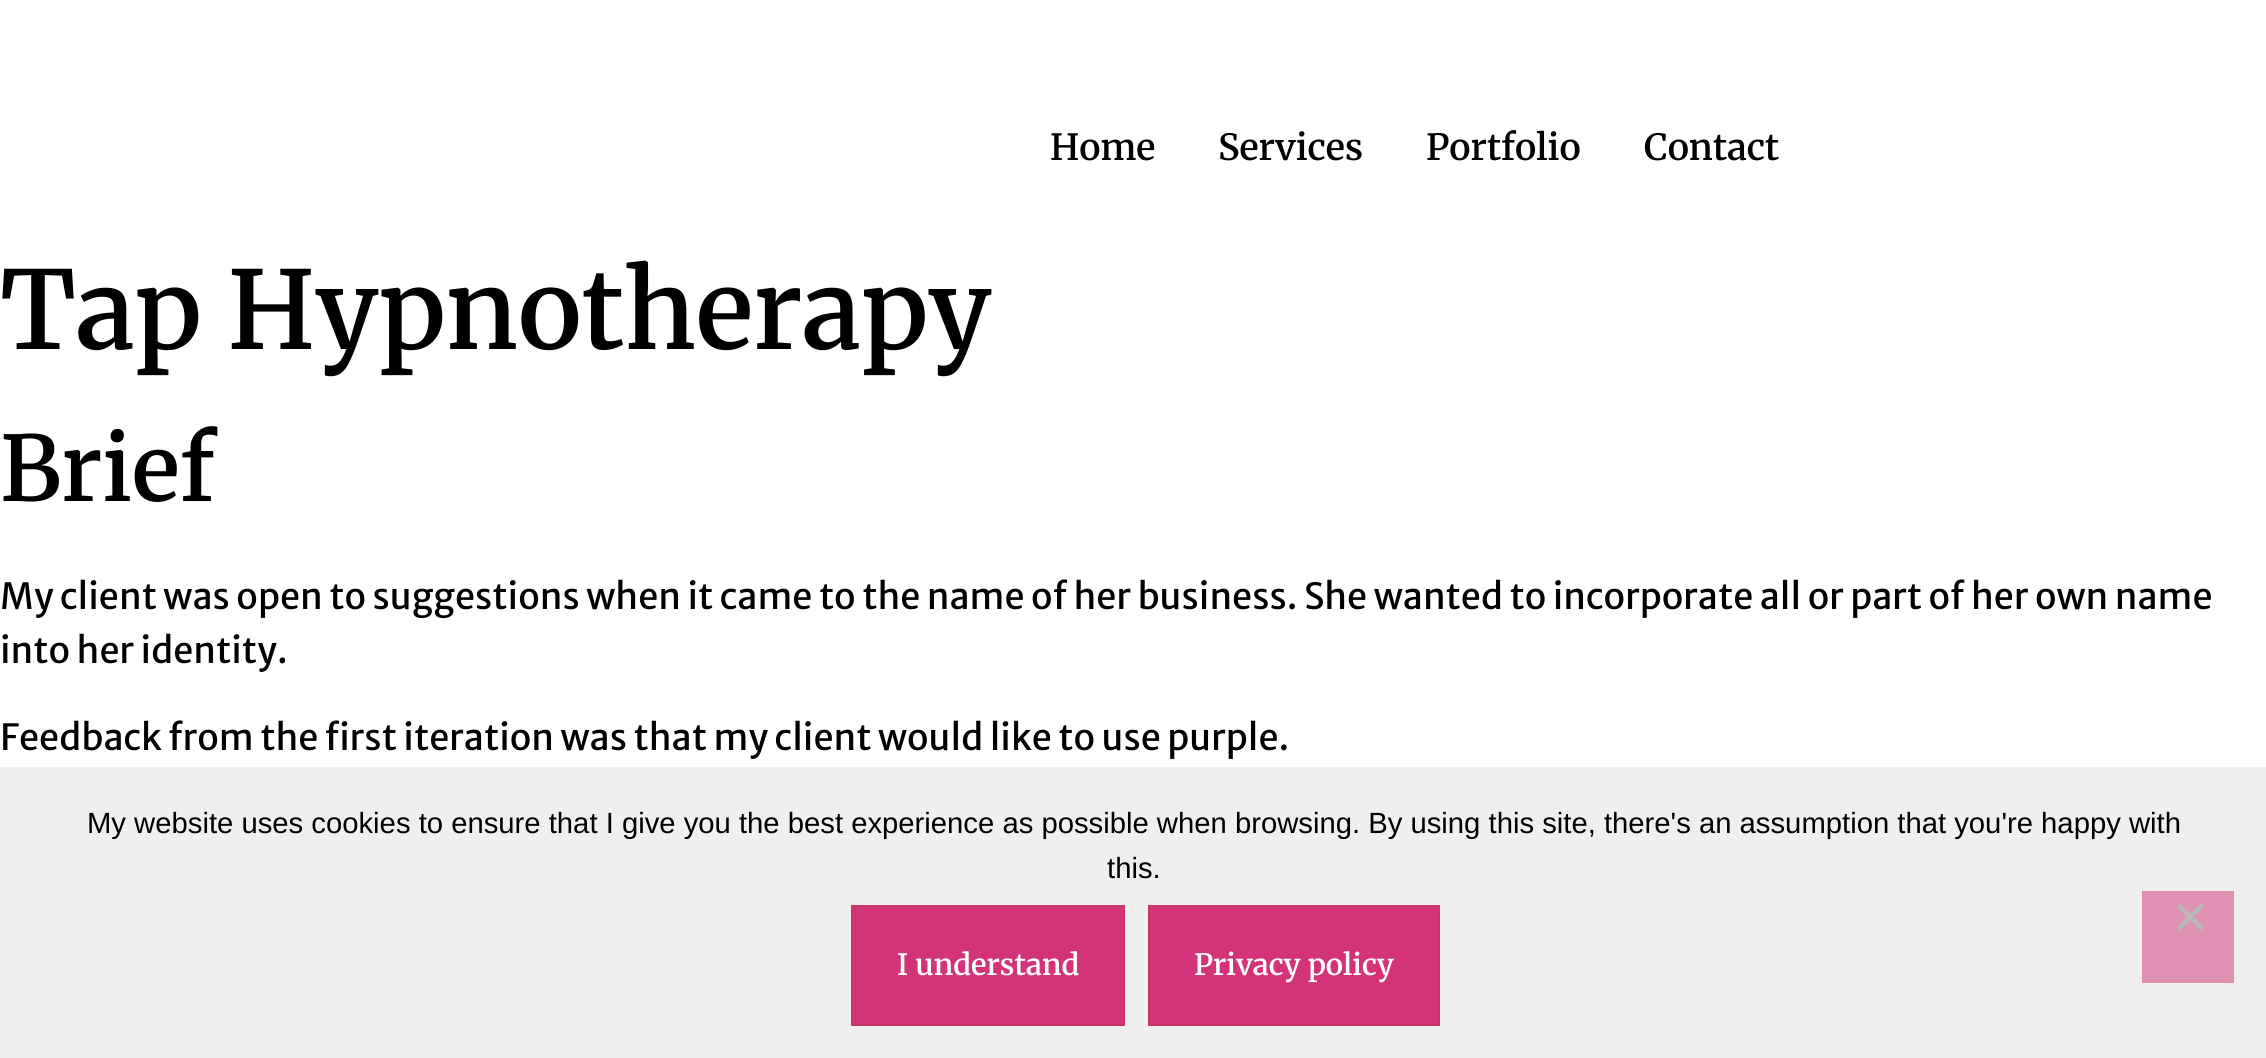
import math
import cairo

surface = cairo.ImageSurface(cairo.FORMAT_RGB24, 2266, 1058)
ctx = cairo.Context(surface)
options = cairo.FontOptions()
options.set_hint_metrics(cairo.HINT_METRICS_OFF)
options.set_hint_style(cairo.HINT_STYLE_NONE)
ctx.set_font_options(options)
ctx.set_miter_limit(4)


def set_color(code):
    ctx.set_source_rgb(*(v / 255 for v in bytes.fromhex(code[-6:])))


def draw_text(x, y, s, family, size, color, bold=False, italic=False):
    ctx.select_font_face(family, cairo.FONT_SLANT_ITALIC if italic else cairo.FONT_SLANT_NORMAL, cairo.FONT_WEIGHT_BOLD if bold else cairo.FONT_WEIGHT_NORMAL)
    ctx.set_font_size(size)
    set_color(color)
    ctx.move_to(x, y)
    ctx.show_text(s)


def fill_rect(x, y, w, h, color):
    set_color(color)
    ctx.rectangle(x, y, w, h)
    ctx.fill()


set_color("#ffffff")
ctx.paint()
draw_text(1050, 160, "Home", "Merriweather SemiBold", 36, "#000000")
draw_text(1218, 160, "Services", "Merriweather SemiBold", 36, "#000000")
draw_text(1426, 160, "Portfolio", "Merriweather SemiBold", 36, "#000000")
draw_text(1644, 160, "Contact", "Merriweather SemiBold", 36, "#000000")
draw_text(0, 349, "Tap Hypnotherapy", "Merriweather SemiBold", 108, "#000000")
draw_text(0, 501, "Brief", "Merriweather SemiBold", 90, "#000000")
draw_text(0, 609, "My client was open to suggestions when it came to the name of her business. She wanted to incorporate all or part of her own name", "Merriweather Sans", 36, "#000000")
draw_text(0, 663, "into her identity.", "Merriweather Sans", 36, "#000000")
draw_text(0, 750, "Feedback from the first iteration was that my client would like to use purple.", "Merriweather Sans", 36, "#000000")
fill_rect(0, 767, 2266, 291, "#efefef")
draw_text(87, 833, "My website uses cookies to ensure that I give you the best experience as possible when browsing. By using this site, there's an assumption that you're happy with", "Liberation Sans", 29.25, "#000000")
draw_text(1107, 878, "this.", "Liberation Sans", 29.25, "#000000")
set_color("#d33479")
ctx.rectangle(852, 906, 272, 119)
ctx.fill_preserve()
set_color("#cc3366")
ctx.stroke()
draw_text(897, 975, "I understand", "Merriweather SemiBold", 29.25, "#ffffff")
set_color("#d33479")
ctx.rectangle(1149, 906, 290, 119)
ctx.fill_preserve()
set_color("#cc3366")
ctx.stroke()
draw_text(1194, 975, "Privacy policy", "Merriweather SemiBold", 29.25, "#ffffff")
set_color("#e192b4")
ctx.rectangle(2143, 892, 90, 90)
ctx.fill_preserve()
set_color("#de91ab")
ctx.stroke()
set_color("#b8b8b8")
ctx.new_path()
ctx.move_to(2200.5, 903.5)
ctx.line_to(2204, 906.5)
ctx.line_to(2180, 930.5)
ctx.line_to(2177, 927)
ctx.close_path()
ctx.fill()
ctx.new_path()
ctx.move_to(2177, 906.5)
ctx.line_to(2180, 903.5)
ctx.line_to(2204, 927)
ctx.line_to(2200.5, 930.5)
ctx.close_path()
ctx.fill()
surface.write_to_png("output.png")
